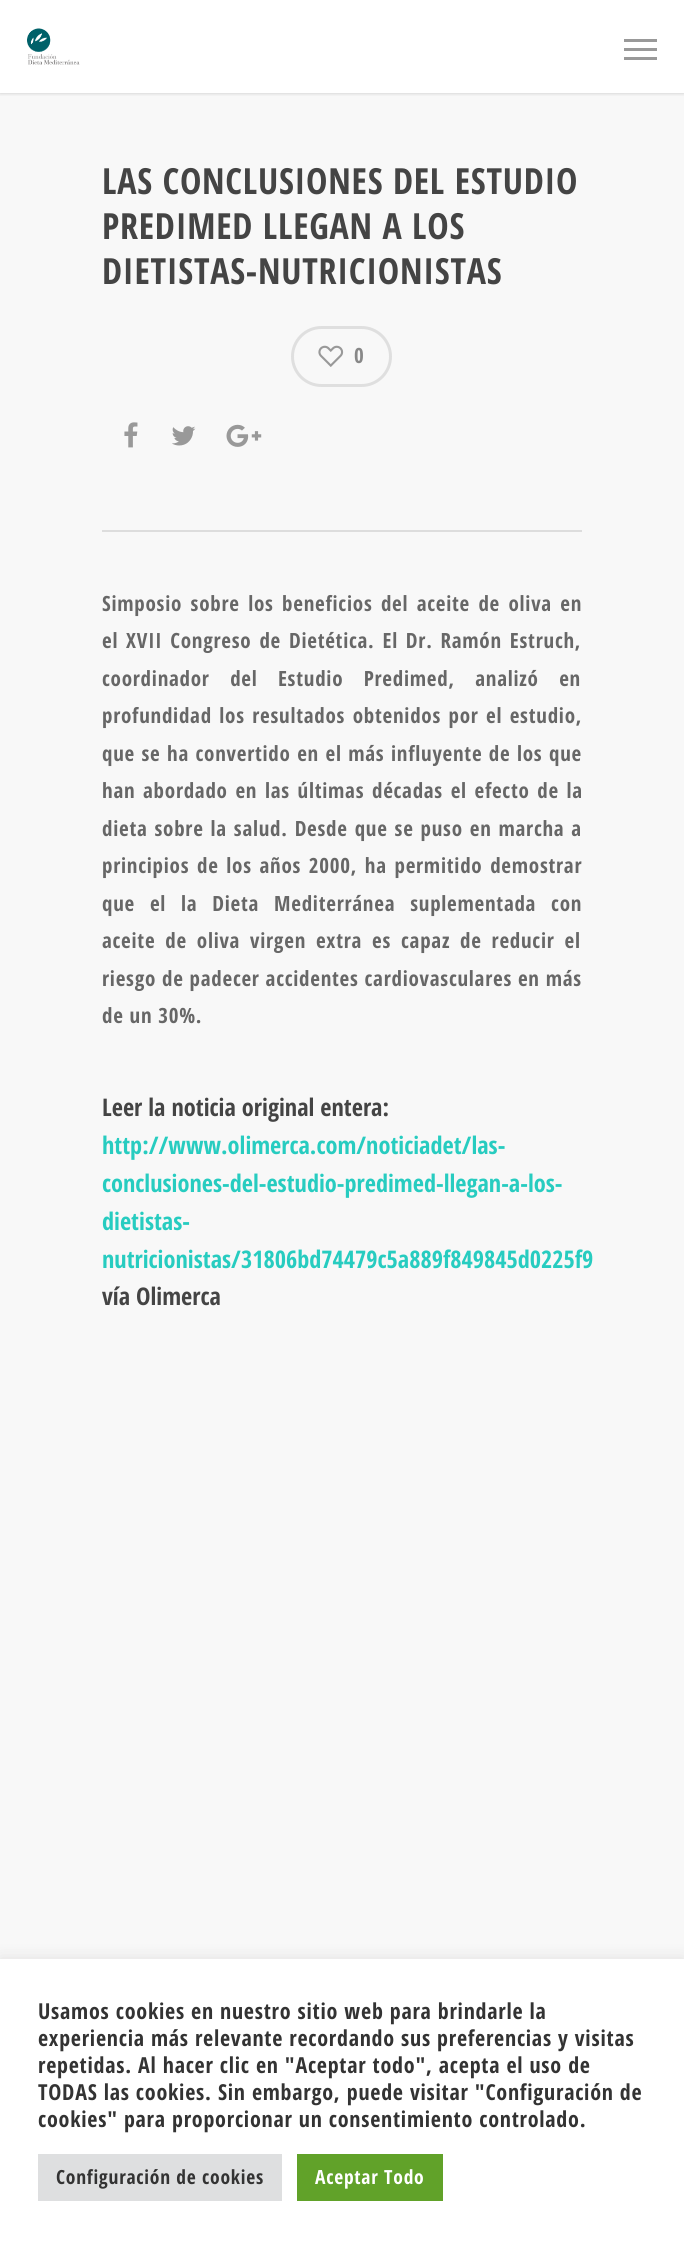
import math
import cairo

surface = cairo.ImageSurface(cairo.FORMAT_RGB24, 684, 2245)
ctx = cairo.Context(surface)
options = cairo.FontOptions()
options.set_hint_metrics(cairo.HINT_METRICS_OFF)
options.set_hint_style(cairo.HINT_STYLE_NONE)
ctx.set_font_options(options)
ctx.set_miter_limit(4)


def set_color(code):
    ctx.set_source_rgb(*(v / 255 for v in bytes.fromhex(code[-6:])))


def draw_text(x, y, s, family, size, color, bold=False, italic=False):
    ctx.select_font_face(family, cairo.FONT_SLANT_ITALIC if italic else cairo.FONT_SLANT_NORMAL, cairo.FONT_WEIGHT_BOLD if bold else cairo.FONT_WEIGHT_NORMAL)
    ctx.set_font_size(size)
    set_color(color)
    ctx.move_to(x, y)
    ctx.show_text(s)


def draw_spaced(x, y, s, letter, word):
    ctx.move_to(x, y)
    for ch in s:
        ctx.show_text(ch)
        ctx.rel_move_to(letter + word * (ch == ' '), 0)


def fill_rect(x, y, w, h, color):
    set_color(color)
    ctx.rectangle(x, y, w, h)
    ctx.fill()


def rounded_rect(x, y, w, h, r):
    ctx.new_sub_path()
    for i, (u, v) in enumerate([(x + w - r, y + h - r), (x + r, y + h - r), (x + r, y + r), (x + w - r, y + r)]):
        ctx.arc(u, v, r, i * math.pi / 2, (i + 1) * math.pi / 2)
    ctx.close_path()


def draw_shadow(x, y, w, h, r, blur, alpha):
    ctx.push_group_with_content(cairo.CONTENT_ALPHA)
    ctx.set_operator(cairo.OPERATOR_SOURCE)
    for i in range(15, -16, -2):
        e = blur * i / 6
        if min(w, h) + 2 * e > 0:
            ctx.set_source_rgba(0, 0, 0, alpha * math.erfc((i - 1) / 8.5) / 2)
            rounded_rect(x - e, y - e, w + 2 * e, h + 2 * e, max(0, min(r + e + blur * .6, min(w, h) / 2 + e)))
            ctx.fill()
    ctx.mask(ctx.pop_group())


def draw_image(path, x, y, w, h):
    ctx.save()
    ctx.set_source_surface(cairo.ImageSurface.create_from_png(path), x, y)
    ctx.rectangle(x, y, w, h)
    ctx.fill()
    ctx.restore()


set_color("#f8f8f8")
ctx.paint()
fill_rect(0, 0, 684, 93, "#ffffff")
ctx.save()
ctx.rectangle(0, 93, 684, 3)
ctx.clip()
set_color("#000000")
draw_shadow(0, 0, 684, 93, 0, 2, 0.22)
ctx.restore()
draw_image("assets/img1.png", 27, 28, 53, 37)
fill_rect(624, 39, 33, 3, "#999999")
fill_rect(624, 57, 33, 3, "#999999")
fill_rect(624, 48, 33, 3, "#999999")
fill_rect(102, 530, 480, 2, "#dddddd")
ctx.select_font_face("Open Sans Condensed", cairo.FONT_SLANT_NORMAL, cairo.FONT_WEIGHT_BOLD)
ctx.set_font_size(36)
set_color("#444444")
draw_spaced(102, 194, "LAS CONCLUSIONES DEL ESTUDIO", 0.75, 0)
draw_spaced(102, 239, "PREDIMED LLEGAN A LOS", 0.75, 0)
draw_spaced(102, 284, "DIETISTAS-NUTRICIONISTAS", 0.75, 0)
rounded_rect(292.5, 327.5, 98, 58, 29)
set_color("#dfdfdf")
ctx.set_line_width(3)
ctx.stroke()
draw_image("assets/img2.png", 318, 345, 26, 22)
ctx.set_font_size(21)
set_color("#888888")
draw_spaced(354, 363, "0", 0.75, 0)
draw_image("assets/img3.png", 124, 422, 14, 26)
draw_image("assets/img4.png", 172, 426, 24, 20)
draw_image("assets/img5.png", 226, 424, 36, 23)
set_color("#676767")
draw_spaced(102, 611, "Simposio sobre los beneficios del aceite de oliva en", 0.75, 2.5)
draw_spaced(102, 648, "el XVII Congreso de Dietética. El Dr. Ramón Estruch,", 0.75, 2)
draw_spaced(102, 686, "coordinador del Estudio Predimed, analizó en", 0.75, 14.5)
draw_spaced(102, 723, "profundidad los resultados obtenidos por el estudio,", 0.75, 1.5)
draw_spaced(102, 761, "que se ha convertido en el más influyente de los que", 0.75, 0.6)
draw_spaced(102, 798, "han abordado en las últimas décadas el efecto de la", 0.75, 1.75)
draw_spaced(102, 836, "dieta sobre la salud. Desde que se puso en marcha a", 0.75, 1)
draw_spaced(102, 873, "principios de los años 2000, ha permitido demostrar", 0.75, 1.75)
draw_spaced(102, 911, "que el la Dieta Mediterránea suplementada con", 0.75, 9)
draw_spaced(102, 948, "aceite de oliva virgen extra es capaz de reducir el", 0.75, 4)
draw_spaced(102, 986, "riesgo de padecer accidentes cardiovasculares en más", 0.75, 0)
draw_spaced(102, 1023, "de un 30%.", 0.75, 0)
draw_text(102, 1116, "Leer la noticia original entera:", "Open Sans Condensed", 24.3, "#444444", bold=True)
draw_text(102, 1154, "http://www.olimerca.com/noticiadet/las-", "Open Sans Condensed", 24.3, "#27ccc0", bold=True)
draw_text(102, 1192, "conclusiones-del-estudio-predimed-llegan-a-los-", "Open Sans Condensed", 24.3, "#27ccc0", bold=True)
draw_text(102, 1230, "dietistas-", "Open Sans Condensed", 24.3, "#27ccc0", bold=True)
draw_text(102, 1268, "nutricionistas/31806bd74479c5a889f849845d0225f9", "Open Sans Condensed", 24.3, "#27ccc0", bold=True)
draw_text(102, 1305, "vía Olimerca", "Open Sans Condensed", 24.3, "#444444", bold=True)
set_color("#acabab")
draw_shadow(0, 1958, 684, 286, 0, 7.5, 0.3)
fill_rect(0, 1959, 684, 286, "#ffffff")
ctx.set_font_size(22)
set_color("#333333")
draw_spaced(38, 2019, "Usamos cookies en nuestro sitio web para brindarle la", 0.75, 0)
draw_spaced(38, 2046, "experiencia más relevante recordando sus preferencias y visitas", 0.75, 0)
draw_spaced(38, 2073, "repetidas. Al hacer clic en \"Aceptar todo\", acepta el uso de", 0.75, 0)
draw_spaced(38, 2100, "TODAS las cookies. Sin embargo, puede visitar \"Configuración de", 0.75, 0)
draw_spaced(38, 2127, "cookies\" para proporcionar un consentimiento controlado.", 0.75, 0)
fill_rect(38, 2154, 244, 47, "#dedfe0")
ctx.set_font_size(19.5)
set_color("#333333")
draw_spaced(56, 2184, "Configuración de cookies", 0.75, 0)
fill_rect(297, 2154, 146, 47, "#61a229")
set_color("#ffffff")
draw_spaced(315, 2184, "Aceptar Todo", 0.75, 0)
surface.write_to_png("output.png")
